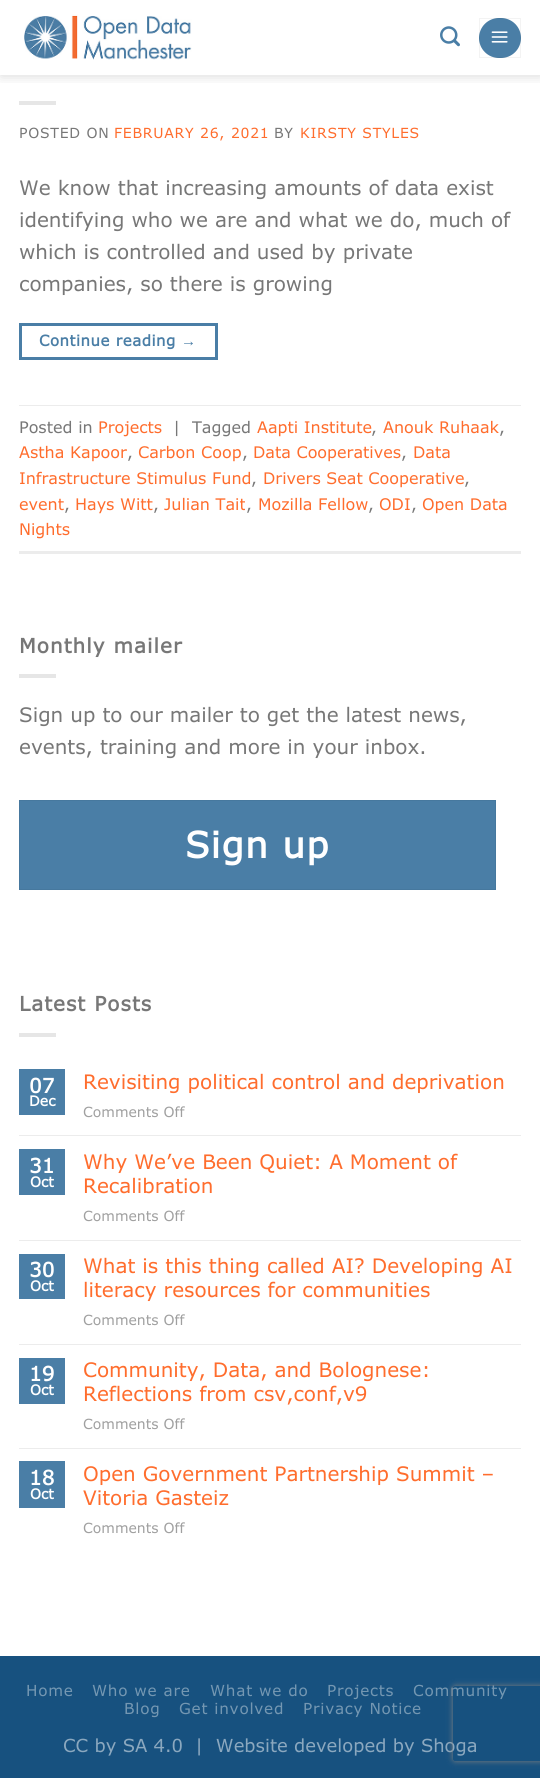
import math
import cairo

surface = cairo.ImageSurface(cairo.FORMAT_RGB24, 540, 1778)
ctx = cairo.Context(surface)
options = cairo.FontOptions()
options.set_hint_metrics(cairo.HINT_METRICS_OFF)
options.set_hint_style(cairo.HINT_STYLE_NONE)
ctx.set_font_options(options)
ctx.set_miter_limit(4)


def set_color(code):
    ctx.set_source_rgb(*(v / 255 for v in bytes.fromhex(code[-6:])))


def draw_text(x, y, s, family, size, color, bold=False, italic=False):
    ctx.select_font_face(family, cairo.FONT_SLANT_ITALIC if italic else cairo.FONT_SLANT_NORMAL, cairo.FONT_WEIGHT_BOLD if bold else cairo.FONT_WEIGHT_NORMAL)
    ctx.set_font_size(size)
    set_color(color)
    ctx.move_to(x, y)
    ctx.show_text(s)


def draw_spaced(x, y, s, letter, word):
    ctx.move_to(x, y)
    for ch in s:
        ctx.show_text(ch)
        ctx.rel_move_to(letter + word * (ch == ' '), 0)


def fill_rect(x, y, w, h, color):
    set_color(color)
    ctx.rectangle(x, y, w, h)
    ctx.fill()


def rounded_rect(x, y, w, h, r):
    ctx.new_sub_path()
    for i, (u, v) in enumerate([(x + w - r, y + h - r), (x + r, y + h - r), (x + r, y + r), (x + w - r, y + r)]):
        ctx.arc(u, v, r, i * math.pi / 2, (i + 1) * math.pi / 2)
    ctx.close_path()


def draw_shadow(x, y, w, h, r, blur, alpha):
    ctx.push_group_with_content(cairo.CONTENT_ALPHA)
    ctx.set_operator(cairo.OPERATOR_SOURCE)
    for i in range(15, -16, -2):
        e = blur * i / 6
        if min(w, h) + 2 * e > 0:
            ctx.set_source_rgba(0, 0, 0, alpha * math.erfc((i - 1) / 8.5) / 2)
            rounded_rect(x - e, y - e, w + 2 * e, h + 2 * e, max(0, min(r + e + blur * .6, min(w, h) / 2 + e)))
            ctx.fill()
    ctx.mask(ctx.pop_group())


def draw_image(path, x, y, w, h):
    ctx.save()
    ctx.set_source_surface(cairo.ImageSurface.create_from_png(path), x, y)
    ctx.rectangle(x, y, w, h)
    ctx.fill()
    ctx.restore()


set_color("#ffffff")
ctx.paint()
ctx.save()
ctx.rectangle(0, 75, 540, 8)
ctx.clip()
set_color("#000000")
draw_shadow(1, 1, 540, 75, 0, 6, 0.15)
ctx.restore()
draw_image("assets/img1.png", 24, 14, 168, 46)
draw_image("assets/img2.png", 440, 26, 20, 21)
set_color("#4a7ea6")
rounded_rect(479, 18, 42, 40, 20)
ctx.fill()
ctx.rectangle(479.5, 18.5, 41, 39)
ctx.set_source_rgba(0, 0, 0, 0.05)
ctx.set_line_width(1)
ctx.stroke()
draw_image("assets/img3.png", 491, 31, 17, 12)
fill_rect(19, 101, 37, 4, "#e6e6e6")
ctx.select_font_face("Verdana")
ctx.set_font_size(14)
set_color("#777777")
draw_spaced(19, 138, "POSTED ON", 0.75, 0)
set_color("#ff6d2d")
draw_spaced(114, 138, "FEBRUARY 26, 2021", 0.75, 0)
set_color("#777777")
draw_spaced(274, 138, "BY", 0.75, 0)
set_color("#ff6d2d")
draw_spaced(300, 138, "KIRSTY STYLES", 0.75, 0)
draw_text(19, 195, "We know that increasing amounts of data exist", "Verdana", 20, "#777777")
draw_text(19, 227, "identifying who we are and what we do, much of", "Verdana", 20, "#777777")
draw_text(19, 259, "which is controlled and used by private", "Verdana", 20, "#777777")
draw_text(19, 291, "companies, so there is growing", "Verdana", 20, "#777777")
ctx.rectangle(20.5, 324.5, 196, 34)
set_color("#4a7ea6")
ctx.set_line_width(3)
ctx.stroke()
ctx.select_font_face("Verdana", cairo.FONT_SLANT_NORMAL, cairo.FONT_WEIGHT_BOLD)
ctx.set_font_size(15)
draw_spaced(39, 346, "Continue reading", 0.5, 0)
ctx.select_font_face("Liberation Serif", cairo.FONT_SLANT_NORMAL, cairo.FONT_WEIGHT_BOLD)
draw_spaced(181, 346, "→", 0.5, 0)
fill_rect(19, 405, 502, 1, "#ececec")
fill_rect(19, 551, 502, 3, "#ececec")
draw_text(19, 433, "Posted in", "Verdana", 16, "#777777")
draw_text(98, 433, "Projects", "Verdana", 16, "#ff6d2d")
draw_text(173, 433, "|", "Verdana", 16, "#777777")
draw_text(192, 433, "Tagged", "Verdana", 16, "#777777")
draw_text(257, 433, "Aapti Institute", "Verdana", 16, "#ff6d2d")
draw_text(371, 433, ",", "Verdana", 16, "#777777")
draw_text(383, 433, "Anouk Ruhaak", "Verdana", 16, "#ff6d2d")
draw_text(499, 433, ",", "Verdana", 16, "#777777")
draw_text(19, 458, "Astha Kapoor", "Verdana", 16, "#ff6d2d")
draw_text(127, 458, ",", "Verdana", 16, "#777777")
draw_text(138, 458, "Carbon Coop", "Verdana", 16, "#ff6d2d")
draw_text(242, 458, ",", "Verdana", 16, "#777777")
draw_text(253, 458, "Data Cooperatives", "Verdana", 16, "#ff6d2d")
draw_text(401, 458, ",", "Verdana", 16, "#777777")
draw_text(413, 458, "Data", "Verdana", 16, "#ff6d2d")
draw_text(19, 484, "Infrastructure Stimulus Fund", "Verdana", 16, "#ff6d2d")
draw_text(251, 484, ",", "Verdana", 16, "#777777")
draw_text(263, 484, "Drivers Seat Cooperative", "Verdana", 16, "#ff6d2d")
draw_text(464, 484, ",", "Verdana", 16, "#777777")
draw_text(19, 510, "event", "Verdana", 16, "#ff6d2d")
draw_text(64, 510, ",", "Verdana", 16, "#777777")
draw_text(75, 510, "Hays Witt", "Verdana", 16, "#ff6d2d")
draw_text(153, 510, ",", "Verdana", 16, "#777777")
draw_text(164, 510, "Julian Tait", "Verdana", 16, "#ff6d2d")
draw_text(246, 510, ",", "Verdana", 16, "#777777")
draw_text(258, 510, "Mozilla Fellow", "Verdana", 16, "#ff6d2d")
draw_text(368, 510, ",", "Verdana", 16, "#777777")
draw_text(379, 510, "ODI", "Verdana", 16, "#ff6d2d")
draw_text(411, 510, ",", "Verdana", 16, "#777777")
draw_text(422, 510, "Open Data", "Verdana", 16, "#ff6d2d")
draw_text(19, 535, "Nights", "Verdana", 16, "#ff6d2d")
ctx.select_font_face("Verdana", cairo.FONT_SLANT_NORMAL, cairo.FONT_WEIGHT_BOLD)
ctx.set_font_size(20)
set_color("#777777")
draw_spaced(19, 653, "Monthly mailer", 1, 0)
fill_rect(19, 674, 37, 4, "#e6e6e6")
draw_text(19, 722, "Sign up to our mailer to get the latest news,", "Verdana", 20, "#777777")
draw_text(19, 754, "events, training and more in your inbox.", "Verdana", 20, "#777777")
set_color("#4a7ea6")
ctx.rectangle(19.5, 800.5, 476, 89)
ctx.fill_preserve()
set_color("#46789e")
ctx.set_line_width(1)
ctx.stroke()
ctx.select_font_face("Verdana", cairo.FONT_SLANT_NORMAL, cairo.FONT_WEIGHT_BOLD)
ctx.set_font_size(36)
set_color("#ffffff")
draw_spaced(185, 858, "Sign up", 1, 0)
ctx.set_font_size(20)
set_color("#777777")
draw_spaced(19, 1011, "Latest Posts", 1, 0)
fill_rect(19, 1033, 37, 4, "#e6e6e6")
fill_rect(19, 1069, 46, 46, "#4a7ea6")
draw_text(29, 1093, "07", "Verdana", 20, "#ffffff", bold=True)
draw_text(29, 1106, "Dec", "Verdana", 14, "#ffffff", bold=True)
draw_text(83, 1089, "Revisiting political control and deprivation", "Verdana", 20, "#ff6d2d")
draw_text(83, 1117, "Comments Off", "Verdana", 14, "#a0a0a0")
fill_rect(19, 1135, 502, 1, "#ececec")
fill_rect(19, 1149, 46, 46, "#4a7ea6")
draw_text(29, 1173, "31", "Verdana", 20, "#ffffff", bold=True)
draw_text(30, 1187, "Oct", "Verdana", 14, "#ffffff", bold=True)
draw_text(83, 1169, "Why We’ve Been Quiet: A Moment of", "Verdana", 20, "#ff6d2d")
draw_text(83, 1193, "Recalibration", "Verdana", 20, "#ff6d2d")
draw_text(83, 1221, "Comments Off", "Verdana", 14, "#a0a0a0")
fill_rect(19, 1240, 502, 1, "#ececec")
fill_rect(19, 1254, 46, 45, "#4a7ea6")
draw_text(29, 1277, "30", "Verdana", 20, "#ffffff", bold=True)
draw_text(30, 1291, "Oct", "Verdana", 14, "#ffffff", bold=True)
draw_text(83, 1273, "What is this thing called AI? Developing AI", "Verdana", 20, "#ff6d2d")
draw_text(83, 1297, "literacy resources for communities", "Verdana", 20, "#ff6d2d")
draw_text(83, 1325, "Comments Off", "Verdana", 14, "#a0a0a0")
fill_rect(19, 1344, 502, 1, "#ececec")
fill_rect(19, 1358, 46, 46, "#4a7ea6")
draw_text(29, 1381, "19", "Verdana", 20, "#ffffff", bold=True)
draw_text(30, 1395, "Oct", "Verdana", 14, "#ffffff", bold=True)
draw_text(83, 1377, "Community, Data, and Bolognese:", "Verdana", 20, "#ff6d2d")
draw_text(83, 1401, "Reflections from csv,conf,v9", "Verdana", 20, "#ff6d2d")
draw_text(83, 1429, "Comments Off", "Verdana", 14, "#a0a0a0")
fill_rect(19, 1448, 502, 1, "#ececec")
fill_rect(19, 1461, 46, 47, "#4a7ea6")
draw_text(29, 1485, "18", "Verdana", 20, "#ffffff", bold=True)
draw_text(30, 1499, "Oct", "Verdana", 14, "#ffffff", bold=True)
draw_text(83, 1481, "Open Government Partnership Summit –", "Verdana", 20, "#ff6d2d")
draw_text(83, 1505, "Vitoria Gasteiz", "Verdana", 20, "#ff6d2d")
draw_text(83, 1533, "Comments Off", "Verdana", 14, "#a0a0a0")
fill_rect(0, 1656, 540, 122, "#17517f")
ctx.set_font_size(15.25)
set_color("#7497b2")
draw_spaced(26, 1696, "Home", 0.75, 0)
draw_spaced(92, 1696, "Who we are", 0.75, 0)
draw_spaced(210, 1696, "What we do", 0.75, 0)
draw_spaced(327, 1696, "Projects", 0.75, 0)
draw_spaced(413, 1696, "Community", 0.75, 0)
draw_spaced(124, 1714, "Blog", 0.75, 0)
draw_spaced(179, 1714, "Get involved", 0.75, 0)
draw_spaced(303, 1714, "Privacy Notice", 0.75, 0)
draw_text(63, 1752, "CC by SA 4.0", "Verdana", 18, "#8ba8bf")
draw_text(195, 1752, "|  Website developed by Shoga", "Verdana", 18, "#8ba8bf")
ctx.save()
ctx.set_fill_rule(cairo.FILL_RULE_EVEN_ODD)
ctx.new_path()
ctx.move_to(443, 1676)
ctx.line_to(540, 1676)
ctx.line_to(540, 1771)
ctx.line_to(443, 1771)
ctx.close_path()
ctx.move_to(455.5, 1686)
ctx.line_to(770.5, 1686)
ctx.curve_to(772, 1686, 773, 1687, 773, 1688.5)
ctx.line_to(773, 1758.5)
ctx.curve_to(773, 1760, 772, 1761, 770.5, 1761)
ctx.line_to(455.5, 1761)
ctx.curve_to(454, 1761, 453, 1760, 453, 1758.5)
ctx.line_to(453, 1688.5)
ctx.curve_to(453, 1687, 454, 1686, 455.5, 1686)
ctx.close_path()
ctx.clip()
set_color("#808080")
draw_shadow(453, 1686, 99, 75, 2.5, 3, 1)
ctx.restore()
surface.write_to_png("output.png")
